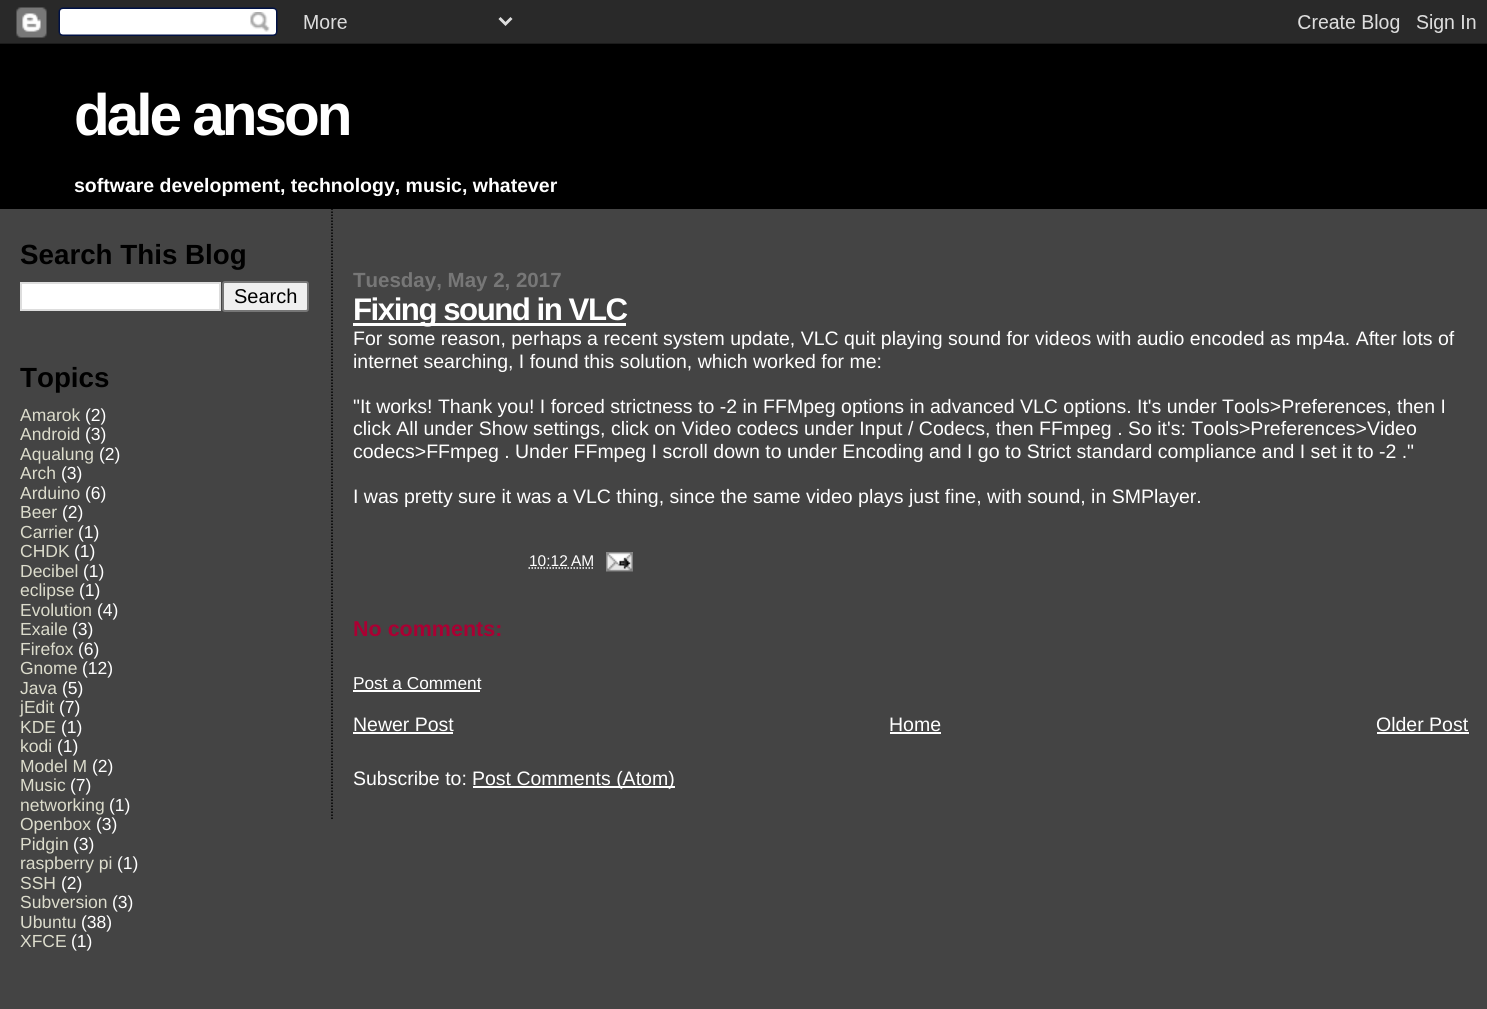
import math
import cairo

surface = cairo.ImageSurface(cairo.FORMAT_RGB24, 1487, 1009)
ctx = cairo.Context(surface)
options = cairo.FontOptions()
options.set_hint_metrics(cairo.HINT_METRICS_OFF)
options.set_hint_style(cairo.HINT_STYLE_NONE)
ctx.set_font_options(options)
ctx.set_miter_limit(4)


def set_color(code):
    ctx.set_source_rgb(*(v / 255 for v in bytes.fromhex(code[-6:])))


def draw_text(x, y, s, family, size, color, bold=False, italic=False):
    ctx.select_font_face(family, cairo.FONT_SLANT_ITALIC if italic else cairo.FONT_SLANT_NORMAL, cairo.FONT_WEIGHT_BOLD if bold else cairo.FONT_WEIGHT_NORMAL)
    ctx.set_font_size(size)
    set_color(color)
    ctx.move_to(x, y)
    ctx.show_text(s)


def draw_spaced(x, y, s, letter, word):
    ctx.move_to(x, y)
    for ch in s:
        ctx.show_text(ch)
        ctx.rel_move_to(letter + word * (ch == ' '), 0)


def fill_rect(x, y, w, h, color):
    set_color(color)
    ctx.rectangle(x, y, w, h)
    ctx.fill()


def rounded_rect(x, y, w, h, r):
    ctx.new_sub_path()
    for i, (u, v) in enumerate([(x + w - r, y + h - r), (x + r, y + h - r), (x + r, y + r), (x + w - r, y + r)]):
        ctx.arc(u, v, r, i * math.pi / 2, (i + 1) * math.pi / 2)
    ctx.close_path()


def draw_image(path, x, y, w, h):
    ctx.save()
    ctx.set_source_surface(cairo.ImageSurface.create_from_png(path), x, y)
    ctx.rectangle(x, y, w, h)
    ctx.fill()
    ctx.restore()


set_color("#444444")
ctx.paint()
draw_image("assets/img1.png", 0, 0, 1487, 45)
fill_rect(0, 45, 1487, 164, "#000000")
ctx.select_font_face("Liberation Sans", cairo.FONT_SLANT_NORMAL, cairo.FONT_WEIGHT_BOLD)
ctx.set_font_size(58.5)
set_color("#ffffff")
draw_spaced(74, 135, "dale anson", -3, 0)
draw_text(74, 192, "software development, technology, music, whatever", "Liberation Sans", 19.5, "#ffffff", bold=True)
draw_text(20, 264, "Search This Blog", "Liberation Sans", 27.75, "#000000", bold=True)
set_color("#ffffff")
ctx.rectangle(21, 283, 199, 27)
ctx.fill_preserve()
set_color("#dddddd")
ctx.stroke()
set_color("#efefef")
rounded_rect(223, 282, 85, 29, 2)
ctx.fill_preserve()
set_color("#767676")
ctx.stroke()
draw_text(234, 303, "Search", "Liberation Sans", 20, "#000000")
ctx.save()
ctx.rectangle(20, 239, 289, 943)
ctx.clip()
draw_text(20, 387, "Topics", "Liberation Sans", 27.75, "#000000", bold=True)
ctx.restore()
draw_text(20, 421, "Amarok", "Liberation Sans", 17.5, "#dcdccc")
draw_text(85, 421, "(2)", "Liberation Sans", 17.5, "#ffffff")
draw_text(20, 440, "Android", "Liberation Sans", 17.5, "#dcdccc")
draw_text(85, 440, "(3)", "Liberation Sans", 17.5, "#ffffff")
draw_text(20, 460, "Aqualung", "Liberation Sans", 17.5, "#dcdccc")
draw_text(99, 460, "(2)", "Liberation Sans", 17.5, "#ffffff")
draw_text(20, 479, "Arch", "Liberation Sans", 17.5, "#dcdccc")
draw_text(61, 479, "(3)", "Liberation Sans", 17.5, "#ffffff")
draw_text(20, 499, "Arduino", "Liberation Sans", 17.5, "#dcdccc")
draw_text(85, 499, "(6)", "Liberation Sans", 17.5, "#ffffff")
draw_text(20, 518, "Beer", "Liberation Sans", 17.5, "#dcdccc")
draw_text(62, 518, "(2)", "Liberation Sans", 17.5, "#ffffff")
draw_text(20, 538, "Carrier", "Liberation Sans", 17.5, "#dcdccc")
draw_text(78, 538, "(1)", "Liberation Sans", 17.5, "#ffffff")
draw_text(20, 557, "CHDK", "Liberation Sans", 17.5, "#dcdccc")
draw_text(74, 557, "(1)", "Liberation Sans", 17.5, "#ffffff")
draw_text(20, 577, "Decibel", "Liberation Sans", 17.5, "#dcdccc")
draw_text(83, 577, "(1)", "Liberation Sans", 17.5, "#ffffff")
draw_text(20, 596, "eclipse", "Liberation Sans", 17.5, "#dcdccc")
draw_text(79, 596, "(1)", "Liberation Sans", 17.5, "#ffffff")
draw_text(20, 616, "Evolution", "Liberation Sans", 17.5, "#dcdccc")
draw_text(97, 616, "(4)", "Liberation Sans", 17.5, "#ffffff")
draw_text(20, 635, "Exaile", "Liberation Sans", 17.5, "#dcdccc")
draw_text(72, 635, "(3)", "Liberation Sans", 17.5, "#ffffff")
draw_text(20, 655, "Firefox", "Liberation Sans", 17.5, "#dcdccc")
draw_text(78, 655, "(6)", "Liberation Sans", 17.5, "#ffffff")
draw_text(20, 674, "Gnome", "Liberation Sans", 17.5, "#dcdccc")
draw_text(82, 674, "(12)", "Liberation Sans", 17.5, "#ffffff")
draw_text(20, 694, "Java", "Liberation Sans", 17.5, "#dcdccc")
draw_text(62, 694, "(5)", "Liberation Sans", 17.5, "#ffffff")
draw_text(20, 713, "jEdit", "Liberation Sans", 17.5, "#dcdccc")
draw_text(59, 713, "(7)", "Liberation Sans", 17.5, "#ffffff")
draw_text(20, 733, "KDE", "Liberation Sans", 17.5, "#dcdccc")
draw_text(61, 733, "(1)", "Liberation Sans", 17.5, "#ffffff")
draw_text(20, 752, "kodi", "Liberation Sans", 17.5, "#dcdccc")
draw_text(57, 752, "(1)", "Liberation Sans", 17.5, "#ffffff")
draw_text(20, 772, "Model M", "Liberation Sans", 17.5, "#dcdccc")
draw_text(92, 772, "(2)", "Liberation Sans", 17.5, "#ffffff")
draw_text(20, 791, "Music", "Liberation Sans", 17.5, "#dcdccc")
draw_text(70, 791, "(7)", "Liberation Sans", 17.5, "#ffffff")
draw_text(20, 811, "networking", "Liberation Sans", 17.5, "#dcdccc")
draw_text(109, 811, "(1)", "Liberation Sans", 17.5, "#ffffff")
draw_text(20, 830, "Openbox", "Liberation Sans", 17.5, "#dcdccc")
draw_text(96, 830, "(3)", "Liberation Sans", 17.5, "#ffffff")
draw_text(20, 850, "Pidgin", "Liberation Sans", 17.5, "#dcdccc")
draw_text(73, 850, "(3)", "Liberation Sans", 17.5, "#ffffff")
draw_text(20, 869, "raspberry pi", "Liberation Sans", 17.5, "#dcdccc")
draw_text(117, 869, "(1)", "Liberation Sans", 17.5, "#ffffff")
draw_text(20, 889, "SSH", "Liberation Sans", 17.5, "#dcdccc")
draw_text(61, 889, "(2)", "Liberation Sans", 17.5, "#ffffff")
draw_text(20, 908, "Subversion", "Liberation Sans", 17.5, "#dcdccc")
draw_text(112, 908, "(3)", "Liberation Sans", 17.5, "#ffffff")
draw_text(20, 928, "Ubuntu", "Liberation Sans", 17.5, "#dcdccc")
draw_text(81, 928, "(38)", "Liberation Sans", 17.5, "#ffffff")
draw_text(20, 947, "XFCE", "Liberation Sans", 17.5, "#dcdccc")
draw_text(71, 947, "(1)", "Liberation Sans", 17.5, "#ffffff")
ctx.new_path()
ctx.move_to(332, 208.5)
ctx.line_to(332, 819)
set_color("#000000")
ctx.set_line_width(1.5)
ctx.set_dash([1.5, 1.5])
ctx.stroke()
draw_text(353, 287, "Tuesday, May 2, 2017", "Liberation Sans", 20.5, "#777777", bold=True)
fill_rect(353, 323, 273, 3, "#ffffff")
ctx.set_font_size(31.25)
draw_spaced(353, 320, "Fixing sound in VLC", -1.5, 0)
draw_text(353, 345, "For some reason, perhaps a recent system update, VLC quit playing sound for videos with audio encoded as mp4a. After lots of", "Liberation Sans", 19.5, "#ffffff")
draw_text(353, 368, "internet searching, I found this solution, which worked for me:", "Liberation Sans", 19.5, "#ffffff")
draw_text(353, 413, "\"It works! Thank you! I forced strictness to -2 in FFMpeg options in advanced VLC options. It's under Tools>Preferences, then I", "Liberation Sans", 19.5, "#ffffff")
draw_text(353, 435, "click All under Show settings, click on Video codecs under Input / Codecs, then FFmpeg . So it's: Tools>Preferences>Video", "Liberation Sans", 19.5, "#ffffff")
draw_text(353, 458, "codecs>FFmpeg . Under FFmpeg I scroll down to under Encoding and I go to Strict standard compliance and I set it to -2 .\"", "Liberation Sans", 19.5, "#ffffff")
draw_text(353, 503, "I was pretty sure it was a VLC thing, since the same video plays just fine, with sound, in SMPlayer.", "Liberation Sans", 19.5, "#ffffff")
draw_text(529, 566, "10:12 AM", "Liberation Sans", 15.5, "#ffffff")
ctx.new_path()
ctx.move_to(528.5, 568)
ctx.line_to(594, 568)
ctx.stroke()
draw_image("assets/img2.png", 606, 552, 27, 20)
draw_text(353, 636, "No comments:", "Liberation Sans", 21.5, "#aa0033", bold=True)
draw_text(353, 689, "Post a Comment", "Liberation Sans", 17.25, "#ffffff")
fill_rect(353, 690, 127, 2, "#ffffff")
draw_text(353, 731, "Newer Post", "Liberation Sans", 19.5, "#ffffff")
fill_rect(353, 732, 100, 2, "#ffffff")
draw_text(889, 731, "Home", "Liberation Sans", 19.5, "#ffffff")
fill_rect(890, 732, 51, 2, "#ffffff")
draw_text(1376, 731, "Older Post", "Liberation Sans", 19.5, "#ffffff")
fill_rect(1377, 732, 92, 2, "#ffffff")
draw_text(353, 785, "Subscribe to:", "Liberation Sans", 19.5, "#ffffff")
fill_rect(473, 786, 202, 2, "#ffffff")
draw_text(472, 785, "Post Comments (Atom)", "Liberation Sans", 19.5, "#ffffff")
surface.write_to_png("output.png")
